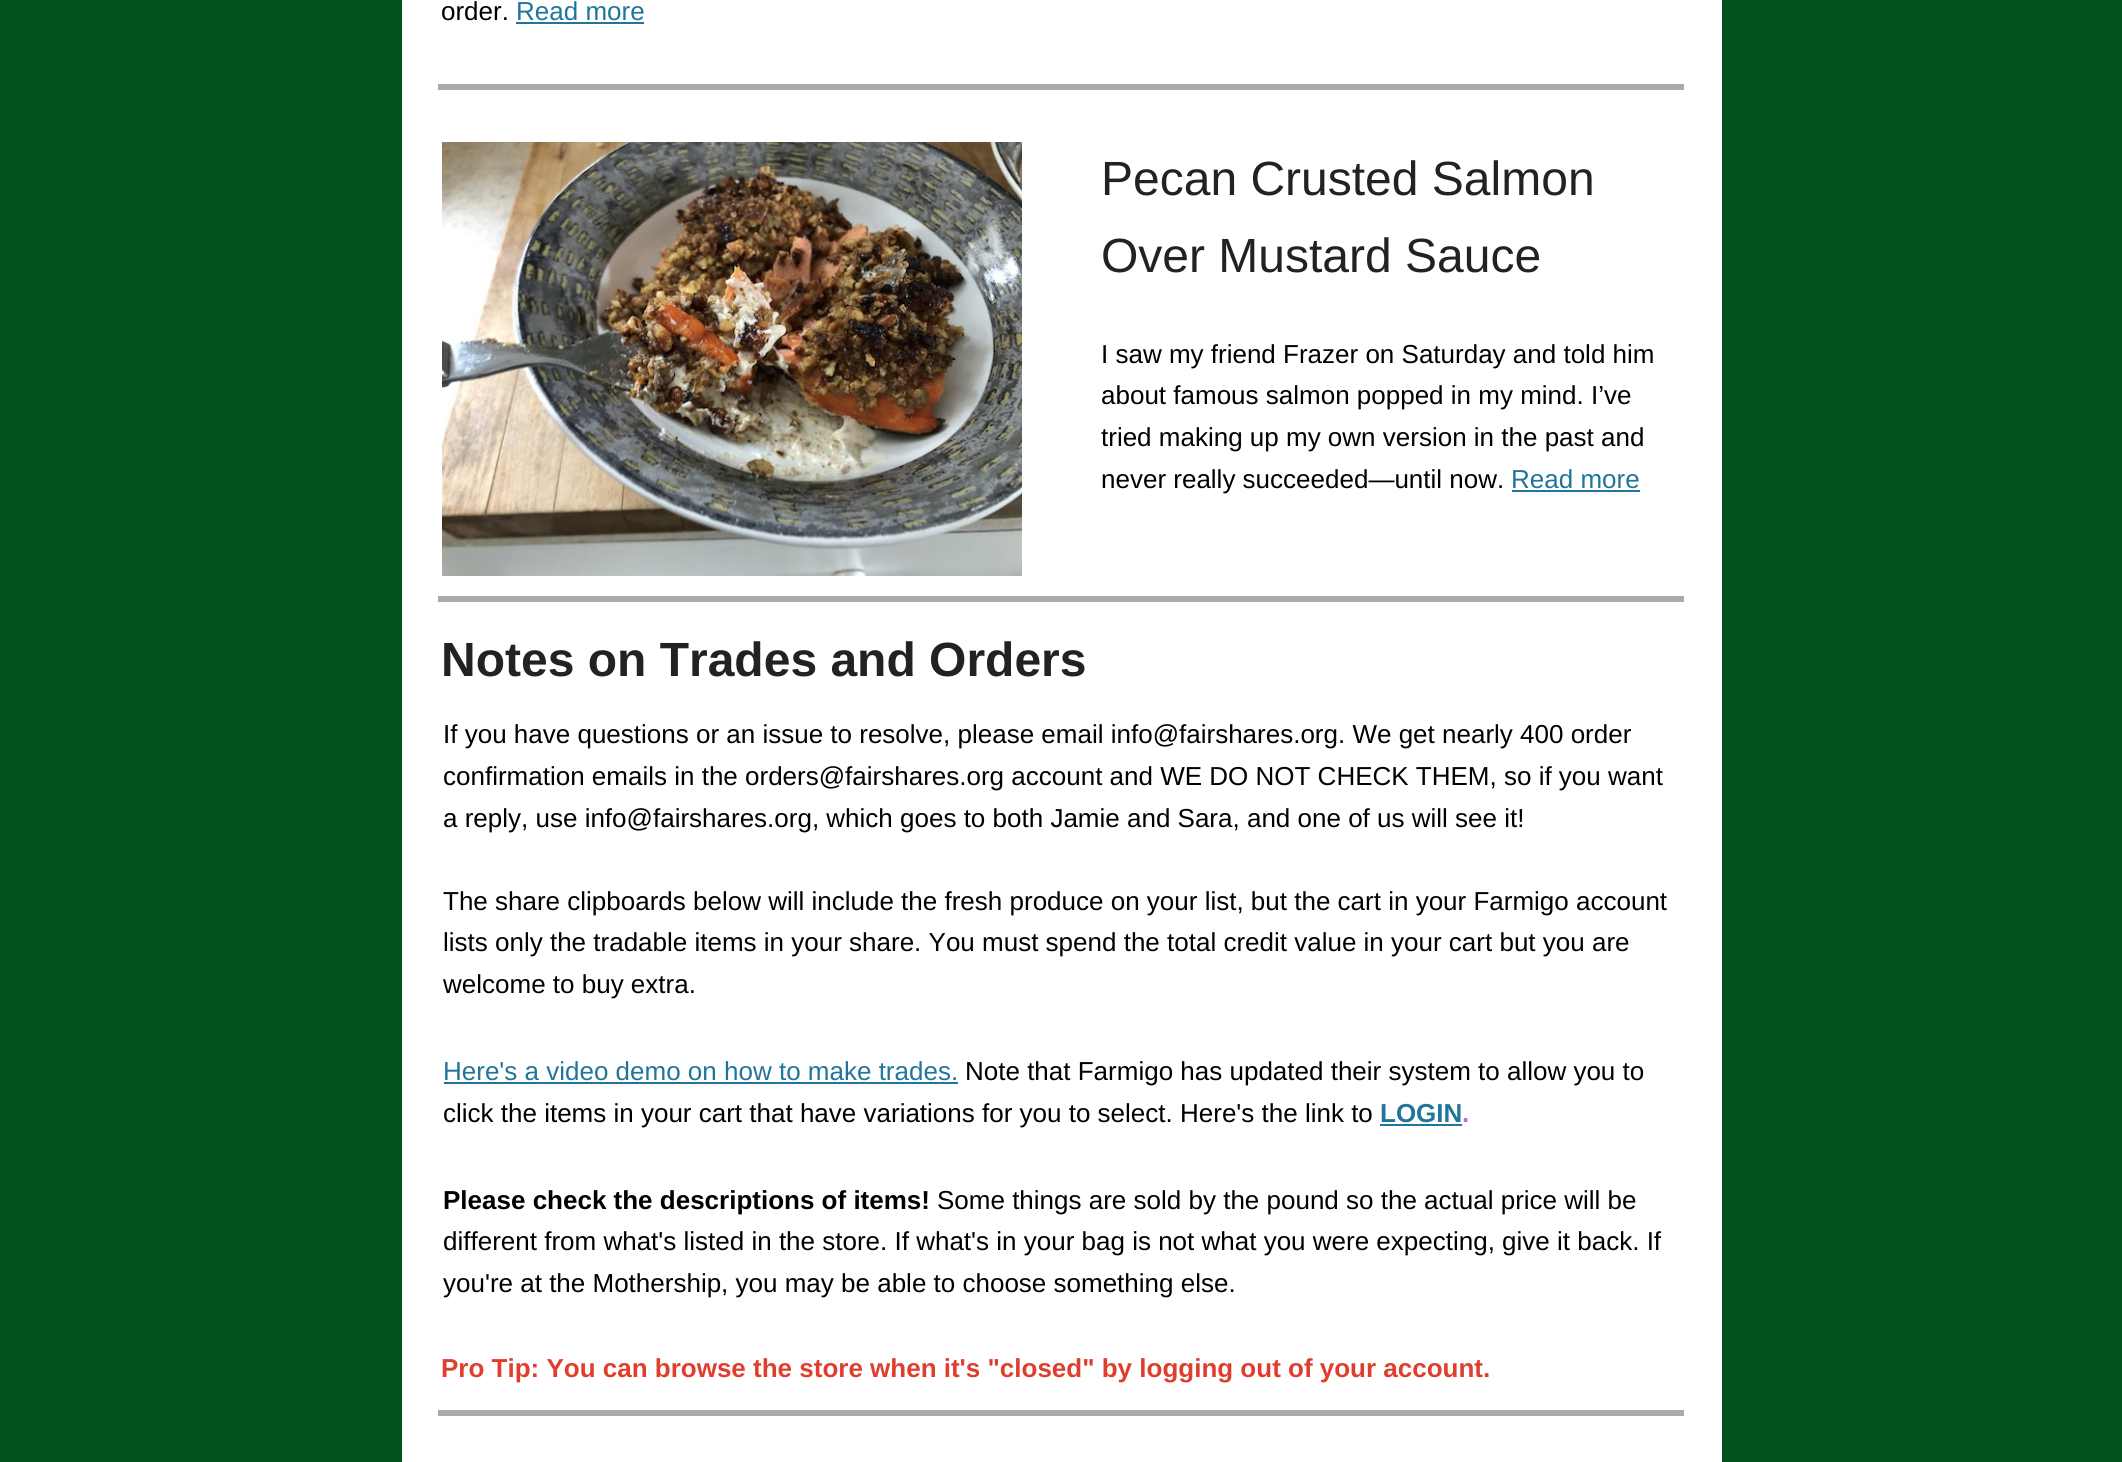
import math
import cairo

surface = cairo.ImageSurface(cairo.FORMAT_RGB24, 2122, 1462)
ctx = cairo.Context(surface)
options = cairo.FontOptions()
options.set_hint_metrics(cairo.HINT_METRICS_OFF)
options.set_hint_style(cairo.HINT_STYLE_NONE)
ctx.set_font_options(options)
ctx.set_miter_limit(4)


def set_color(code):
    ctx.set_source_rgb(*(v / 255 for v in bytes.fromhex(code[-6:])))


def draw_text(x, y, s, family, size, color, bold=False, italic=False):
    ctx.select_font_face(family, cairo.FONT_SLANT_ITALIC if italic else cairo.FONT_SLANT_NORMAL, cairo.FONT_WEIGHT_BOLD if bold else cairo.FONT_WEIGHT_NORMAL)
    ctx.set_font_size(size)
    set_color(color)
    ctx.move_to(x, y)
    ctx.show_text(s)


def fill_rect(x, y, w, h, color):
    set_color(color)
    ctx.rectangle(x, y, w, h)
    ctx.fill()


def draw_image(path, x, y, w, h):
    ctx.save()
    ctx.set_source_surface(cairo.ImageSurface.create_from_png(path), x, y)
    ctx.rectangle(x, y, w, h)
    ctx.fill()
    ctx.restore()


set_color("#02501c")
ctx.paint()
fill_rect(402, 0, 1320, 1462, "#ffffff")
draw_text(441, 20, "order.", "Liberation Sans", 26, "#000000")
draw_text(516, 20, "Read more", "Liberation Sans", 26, "#21759b")
fill_rect(516, 22, 128, 2, "#21759b")
fill_rect(438, 84, 1246, 6, "#aaaaaa")
draw_image("assets/img1.png", 442, 142, 580, 434)
draw_text(1101, 195, "Pecan Crusted Salmon", "Liberation Sans", 48, "#222222")
draw_text(1101, 272, "Over Mustard Sauce", "Liberation Sans", 48, "#222222")
draw_text(1101, 363, "I saw my friend Frazer on Saturday and told him", "Liberation Sans", 26, "#000000")
draw_text(1101, 404, "about famous salmon popped in my mind. I’ve", "Liberation Sans", 26, "#000000")
draw_text(1101, 446, "tried making up my own version in the past and", "Liberation Sans", 26, "#000000")
draw_text(1101, 488, "never really succeeded—until now.", "Liberation Sans", 26, "#000000")
draw_text(1511, 488, "Read more", "Liberation Sans", 26, "#21759b")
fill_rect(1512, 490, 128, 2, "#21759b")
fill_rect(438, 596, 1246, 6, "#aaaaaa")
draw_text(441, 676, "Notes on Trades and Orders", "Liberation Sans", 48, "#222222", bold=True)
draw_text(443, 743, "If you have questions or an issue to resolve, please email info@fairshares.org. We get nearly 400 order", "Liberation Sans", 26, "#000000")
draw_text(443, 785, "confirmation emails in the orders@fairshares.org account and WE DO NOT CHECK THEM, so if you want", "Liberation Sans", 26, "#000000")
draw_text(443, 827, "a reply, use info@fairshares.org, which goes to both Jamie and Sara, and one of us will see it!", "Liberation Sans", 26, "#000000")
draw_text(443, 910, "The share clipboards below will include the fresh produce on your list, but the cart in your Farmigo account", "Liberation Sans", 26, "#000000")
draw_text(443, 951, "lists only the tradable items in your share. You must spend the total credit value in your cart but you are", "Liberation Sans", 26, "#000000")
draw_text(443, 993, "welcome to buy extra.", "Liberation Sans", 26, "#000000")
draw_text(443, 1080, "Here's a video demo on how to make trades.", "Liberation Sans", 26, "#21759b")
fill_rect(444, 1082, 514, 2, "#21759b")
draw_text(965, 1080, "Note that Farmigo has updated their system to allow you to", "Liberation Sans", 26, "#000000")
draw_text(443, 1122, "click the items in your cart that have variations for you to select. Here's the link to", "Liberation Sans", 26, "#000000")
draw_text(1380, 1122, "LOGIN", "Liberation Sans", 26, "#21759b", bold=True)
draw_text(1462, 1122, ".", "Liberation Sans", 26, "#b96ad9", bold=True)
fill_rect(1380, 1124, 82, 2, "#21759b")
draw_text(443, 1209, "Please check the descriptions of items!", "Liberation Sans", 26, "#000000", bold=True)
draw_text(937, 1209, "Some things are sold by the pound so the actual price will be", "Liberation Sans", 26, "#000000")
draw_text(443, 1250, "different from what's listed in the store. If what's in your bag is not what you were expecting, give it back. If", "Liberation Sans", 26, "#000000")
draw_text(443, 1292, "you're at the Mothership, you may be able to choose something else.", "Liberation Sans", 26, "#000000")
draw_text(441, 1377, "Pro Tip: You can browse the store when it's \"closed\" by logging out of your account.", "Liberation Sans", 26, "#e03e2d", bold=True)
fill_rect(438, 1410, 1246, 6, "#aaaaaa")
surface.write_to_png("output.png")
